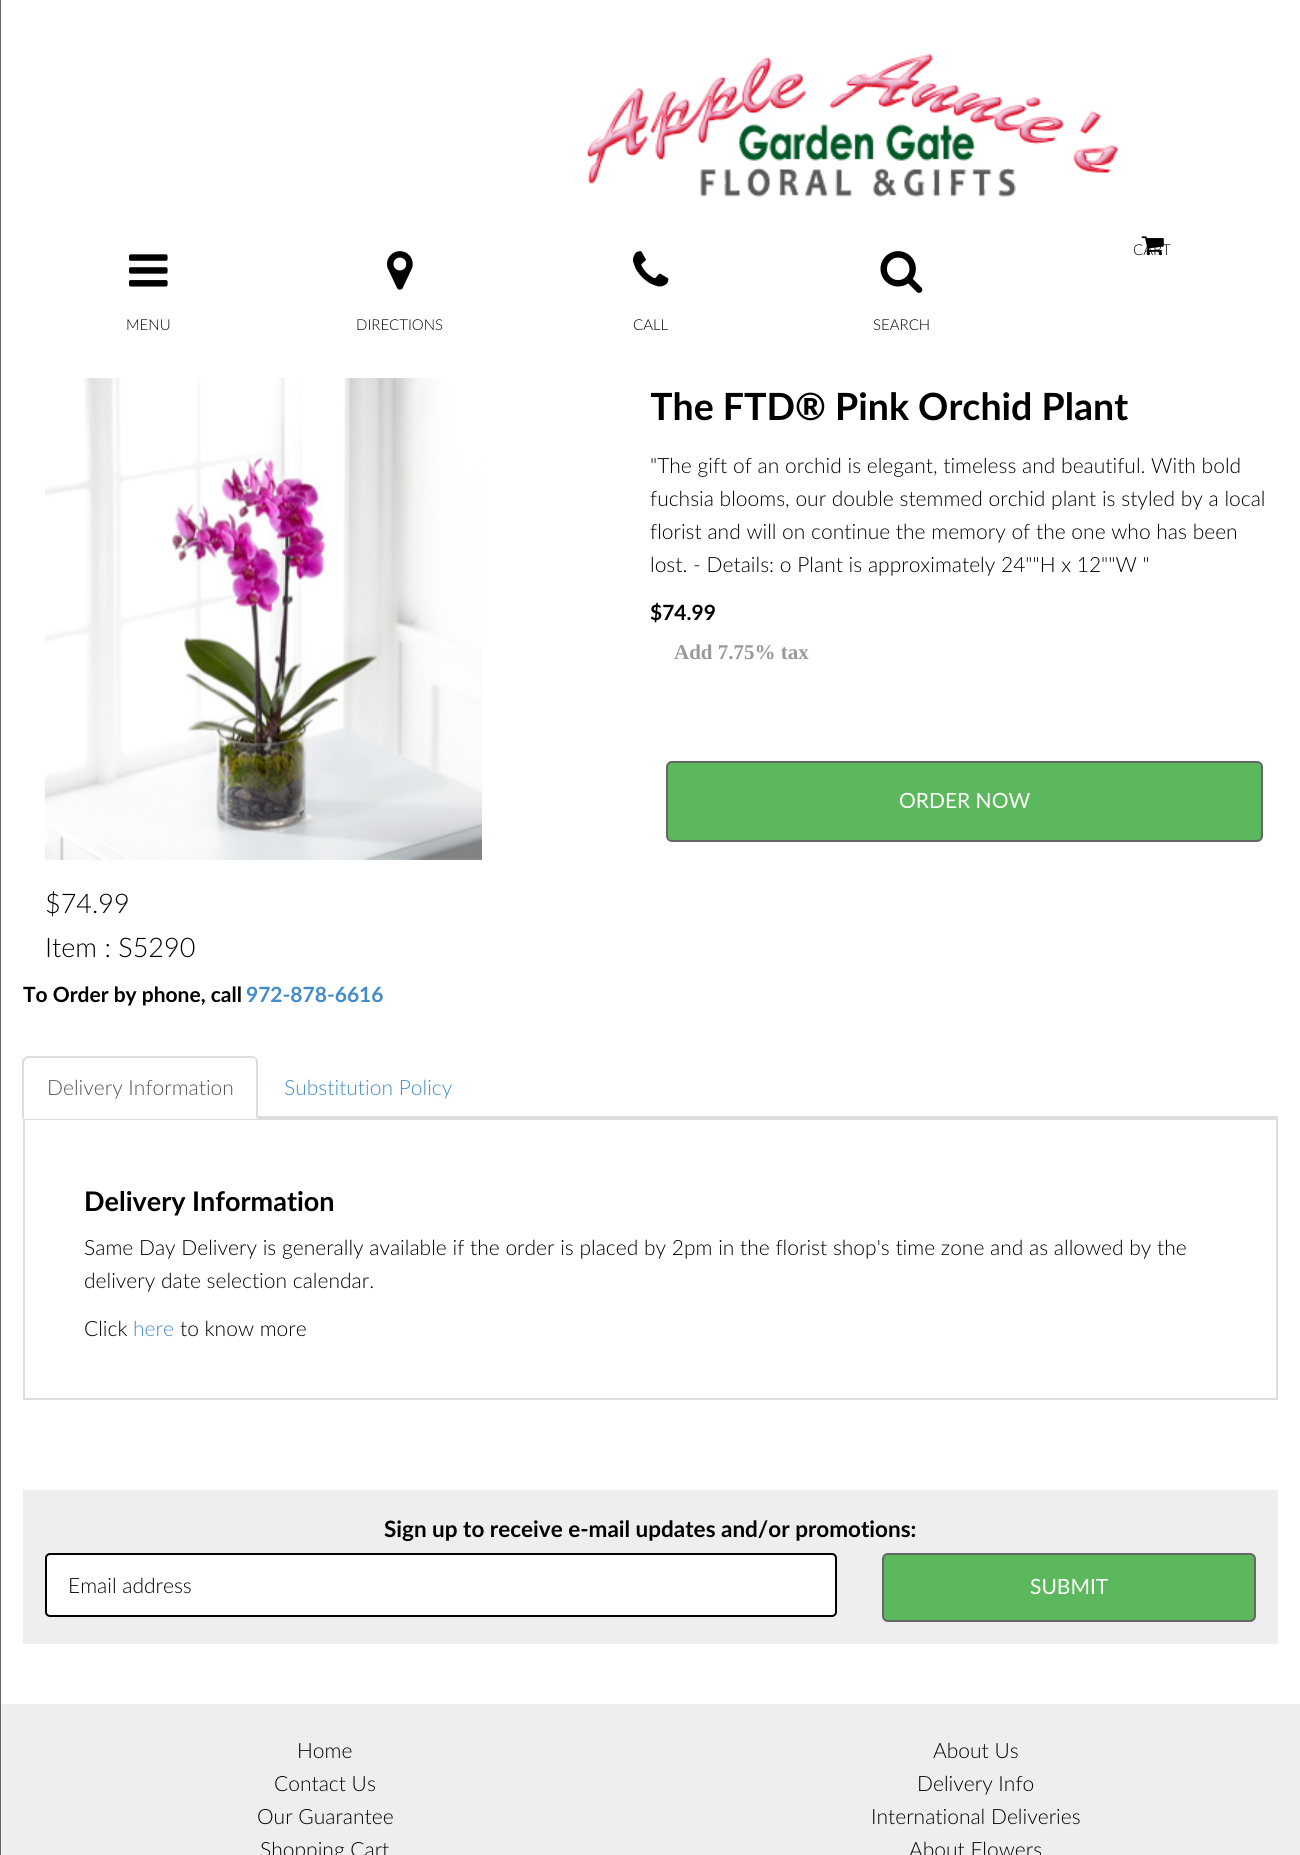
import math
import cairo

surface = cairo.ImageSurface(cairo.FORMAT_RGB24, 1300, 1855)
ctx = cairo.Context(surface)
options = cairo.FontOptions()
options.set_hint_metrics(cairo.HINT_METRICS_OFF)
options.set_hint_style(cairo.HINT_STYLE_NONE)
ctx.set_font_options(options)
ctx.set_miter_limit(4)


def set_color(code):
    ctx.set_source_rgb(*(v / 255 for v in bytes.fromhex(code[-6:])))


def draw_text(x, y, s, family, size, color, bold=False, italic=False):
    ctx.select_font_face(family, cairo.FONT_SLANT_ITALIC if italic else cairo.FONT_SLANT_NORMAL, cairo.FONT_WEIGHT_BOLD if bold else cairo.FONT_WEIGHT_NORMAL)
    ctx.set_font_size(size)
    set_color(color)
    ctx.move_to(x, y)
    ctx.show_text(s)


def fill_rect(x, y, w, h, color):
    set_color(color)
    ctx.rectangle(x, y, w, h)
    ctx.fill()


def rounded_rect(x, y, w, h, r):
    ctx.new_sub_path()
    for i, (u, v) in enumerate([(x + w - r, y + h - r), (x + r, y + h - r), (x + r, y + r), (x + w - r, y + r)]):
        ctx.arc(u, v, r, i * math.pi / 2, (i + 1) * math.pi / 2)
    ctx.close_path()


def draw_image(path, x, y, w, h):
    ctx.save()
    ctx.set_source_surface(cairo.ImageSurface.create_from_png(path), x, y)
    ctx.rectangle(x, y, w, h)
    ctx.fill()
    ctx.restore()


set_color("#ffffff")
ctx.paint()
fill_rect(0, 0, 1, 1855, "#666666")
draw_image("assets/img1.png", 587, 53, 532, 144)
draw_image("assets/img2.png", 1141, 236, 23, 20)
draw_text(1133, 255, "CART", "Lato Light", 15, "#000000")
draw_image("assets/img3.png", 129, 254, 39, 33)
draw_text(126, 330, "MENU", "Lato Light", 15, "#000000")
draw_image("assets/img4.png", 387, 251, 26, 39)
draw_text(356, 330, "DIRECTIONS", "Lato Light", 15, "#000000")
draw_image("assets/img5.png", 633, 251, 36, 36)
draw_text(633, 330, "CALL", "Lato Light", 15, "#000000")
draw_image("assets/img6.png", 880, 251, 43, 42)
draw_text(873, 330, "SEARCH", "Lato Light", 15, "#000000")
ctx.save()
ctx.rectangle(651, 356, 627, 94)
ctx.clip()
draw_text(650, 420, "The FTD® Pink Orchid Plant", "Lato", 37.5, "#000000", bold=True)
ctx.restore()
draw_text(650, 473, "\"The gift of an orchid is elegant, timeless and beautiful. With bold", "Lato Light", 21, "#000000")
draw_text(650, 506, "fuchsia blooms, our double stemmed orchid plant is styled by a local", "Lato Light", 21, "#000000")
draw_text(650, 539, "florist and will on continue the memory of the one who has been", "Lato Light", 21, "#000000")
draw_text(650, 572, "lost. - Details: o Plant is approximately 24\"\"H x 12\"\"W \"", "Lato Light", 21, "#000000")
draw_text(650, 620, "$74.99", "Lato", 21, "#000000", bold=True)
draw_text(674, 659, "Add 7.75% tax", "Liberation Serif", 21, "#999999", bold=True)
set_color("#5cb85c")
rounded_rect(667, 762, 595, 79, 5)
ctx.fill_preserve()
set_color("#666666")
ctx.stroke()
draw_text(899, 808, "ORDER NOW", "Lato", 21, "#ffffff")
draw_image("assets/img7.png", 45, 378, 437, 482)
draw_text(45, 913, "$74.99", "Lato Light", 27, "#000000")
draw_text(45, 957, "Item : S5290", "Lato Light", 27, "#000000")
draw_text(23, 1002, "To Order by phone, call", "Lato", 21, "#000000", bold=True)
draw_text(246, 1002, "972-878-6616", "Lato", 21, "#428bca", bold=True)
fill_rect(258, 1116, 1020, 2, "#dddddd")
ctx.rectangle(24, 1119, 1253, 280)
ctx.stroke()
set_color("#ffffff")
ctx.new_path()
ctx.move_to(29, 1056)
ctx.line_to(252, 1056)
ctx.curve_to(255.5, 1056, 258, 1058.5, 258, 1062)
ctx.line_to(258, 1119)
ctx.line_to(23, 1119)
ctx.line_to(23, 1062)
ctx.curve_to(23, 1058.5, 25.5, 1056, 29, 1056)
ctx.close_path()
ctx.fill()
set_color("#dddddd")
ctx.new_path()
ctx.move_to(28, 1056)
ctx.curve_to(27, 1056, 25, 1057, 24, 1058)
ctx.line_to(26, 1059)
ctx.line_to(28, 1058)
ctx.line_to(252, 1058)
ctx.line_to(255, 1059)
ctx.line_to(256, 1058)
ctx.curve_to(255, 1057, 254, 1056, 252, 1056)
ctx.close_path()
ctx.fill()
ctx.new_path()
ctx.move_to(258, 1119)
ctx.line_to(258, 1062)
ctx.curve_to(258, 1060, 257, 1059, 256, 1058)
ctx.line_to(255, 1059)
ctx.line_to(256, 1062)
ctx.line_to(256, 1117)
ctx.close_path()
ctx.fill()
ctx.new_path()
ctx.move_to(22, 1119)
ctx.line_to(22, 1060)
ctx.line_to(24, 1058)
ctx.line_to(26, 1059)
ctx.line_to(24, 1062)
ctx.line_to(24, 1118)
ctx.close_path()
ctx.fill()
draw_text(47, 1095, "Delivery Information", "Lato Light", 21, "#555555")
draw_text(284, 1095, "Substitution Policy", "Lato Light", 21, "#428bca")
draw_text(84, 1211, "Delivery Information", "Lato", 27, "#000000", bold=True)
draw_text(84, 1255, "Same Day Delivery is generally available if the order is placed by 2pm in the florist shop's time zone and as allowed by the", "Lato Light", 21, "#000000")
draw_text(84, 1288, "delivery date selection calendar.", "Lato Light", 21, "#000000")
draw_text(84, 1336, "Click", "Lato Light", 21, "#000000")
draw_text(133, 1336, "here", "Lato Light", 21, "#428bca")
draw_text(180, 1336, "to know more", "Lato Light", 21, "#000000")
fill_rect(23, 1490, 1255, 154, "#eeeeee")
draw_text(384, 1537, "Sign up to receive e-mail updates and/or promotions:", "Lato", 22.5, "#000000", bold=True)
set_color("#ffffff")
rounded_rect(46, 1554, 790, 62, 4)
ctx.fill_preserve()
set_color("#000000")
ctx.stroke()
draw_text(68, 1593, "Email address", "Lato Light", 21, "#000000")
set_color("#5cb85c")
rounded_rect(883, 1554, 372, 67, 5)
ctx.fill_preserve()
set_color("#666666")
ctx.stroke()
draw_text(1030, 1594, "SUBMIT", "Lato", 21, "#ffffff")
fill_rect(1, 1704, 1299, 151, "#eeeeee")
draw_text(297, 1758, "Home", "Lato Light", 21, "#000000")
draw_text(933, 1758, "About Us", "Lato Light", 21, "#000000")
draw_text(274, 1791, "Contact Us", "Lato Light", 21, "#000000")
draw_text(917, 1791, "Delivery Info", "Lato Light", 21, "#000000")
draw_text(257, 1824, "Our Guarantee", "Lato Light", 21, "#000000")
draw_text(871, 1824, "International Deliveries", "Lato Light", 21, "#000000")
draw_text(260, 1857, "Shopping Cart", "Lato Light", 21, "#000000")
draw_text(909, 1857, "About Flowers", "Lato Light", 21, "#000000")
surface.write_to_png("output.png")
